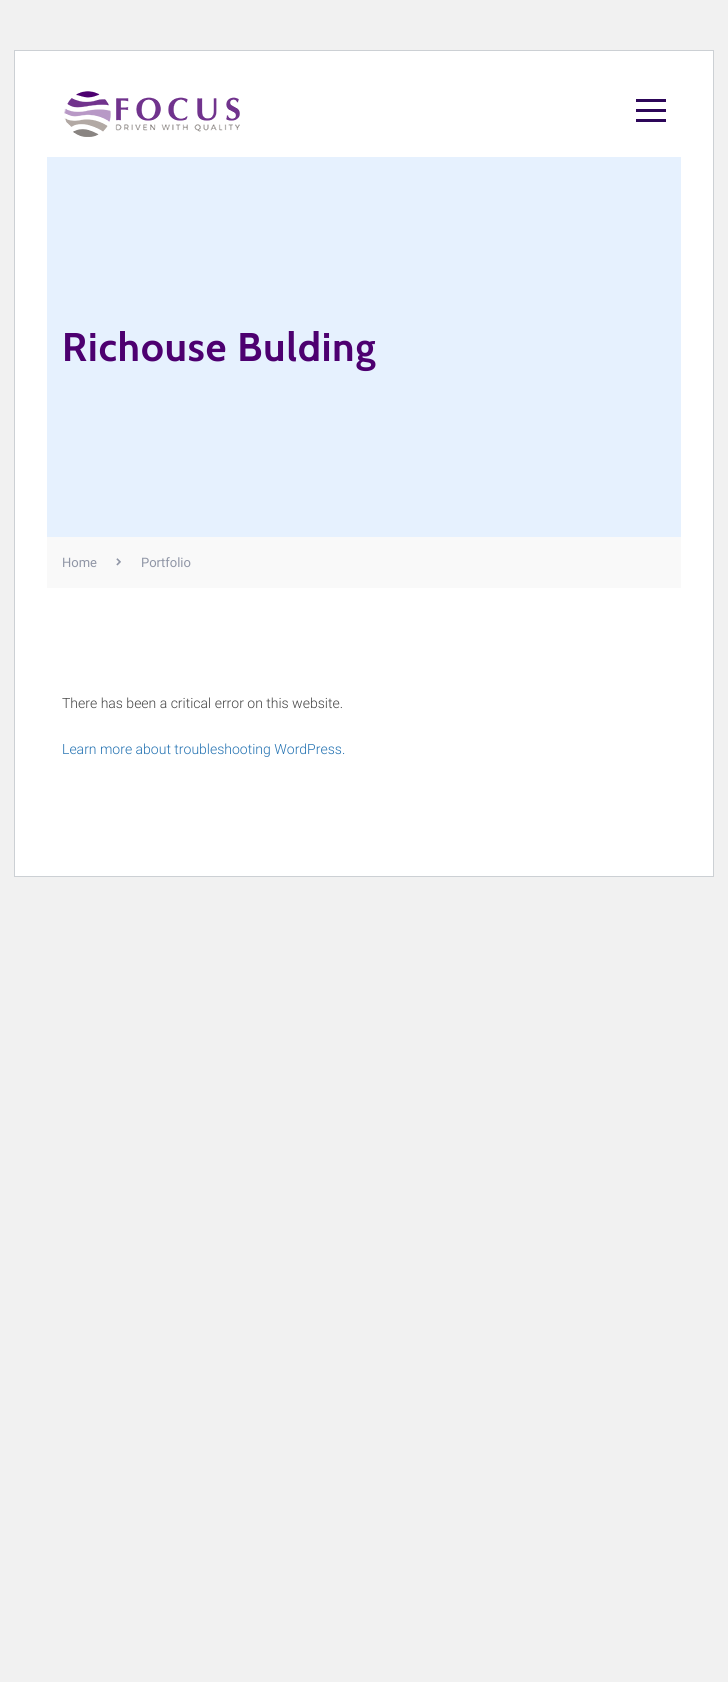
import math
import cairo

surface = cairo.ImageSurface(cairo.FORMAT_RGB24, 728, 1682)
ctx = cairo.Context(surface)
options = cairo.FontOptions()
options.set_hint_metrics(cairo.HINT_METRICS_OFF)
options.set_hint_style(cairo.HINT_STYLE_NONE)
ctx.set_font_options(options)
ctx.set_miter_limit(4)


def set_color(code):
    ctx.set_source_rgb(*(v / 255 for v in bytes.fromhex(code[-6:])))


def draw_text(x, y, s, family, size, color, bold=False, italic=False):
    ctx.select_font_face(family, cairo.FONT_SLANT_ITALIC if italic else cairo.FONT_SLANT_NORMAL, cairo.FONT_WEIGHT_BOLD if bold else cairo.FONT_WEIGHT_NORMAL)
    ctx.set_font_size(size)
    set_color(color)
    ctx.move_to(x, y)
    ctx.show_text(s)


def draw_spaced(x, y, s, letter, word):
    ctx.move_to(x, y)
    for ch in s:
        ctx.show_text(ch)
        ctx.rel_move_to(letter + word * (ch == ' '), 0)


def fill_rect(x, y, w, h, color):
    set_color(color)
    ctx.rectangle(x, y, w, h)
    ctx.fill()


def draw_image(path, x, y, w, h):
    ctx.save()
    ctx.set_source_surface(cairo.ImageSurface.create_from_png(path), x, y)
    ctx.rectangle(x, y, w, h)
    ctx.fill()
    ctx.restore()


set_color("#f1f1f1")
ctx.paint()
set_color("#ffffff")
ctx.rectangle(14.5, 50.5, 699, 826)
ctx.fill_preserve()
set_color("#ccd0d4")
ctx.set_line_width(1)
ctx.stroke()
draw_image("assets/img1.png", 64, 91, 176, 46)
fill_rect(636, 99, 30, 3, "#2d0659")
fill_rect(636, 109, 30, 3, "#2d0659")
fill_rect(636, 119, 30, 3, "#2d0659")
fill_rect(47, 157, 634, 380, "#e6f1fe")
ctx.select_font_face("Cabin", cairo.FONT_SLANT_NORMAL, cairo.FONT_WEIGHT_BOLD)
ctx.set_font_size(40)
set_color("#4d0070")
draw_spaced(62, 361, "Richouse Bulding", 1, 0)
fill_rect(47, 537, 634, 51, "#f9f9f9")
draw_text(62, 567, "Home", "Roboto", 13, "#9096a6")
draw_image("assets/img2.png", 116, 558, 5, 8)
draw_text(141, 567, "Portfolio", "Roboto", 13, "#9096a6")
draw_text(62, 708, "There has been a critical error on this website.", "Roboto Light", 14, "#444444")
draw_text(62, 754, "Learn more about troubleshooting WordPress.", "Roboto Light", 14, "#2271b1")
surface.write_to_png("output.png")
